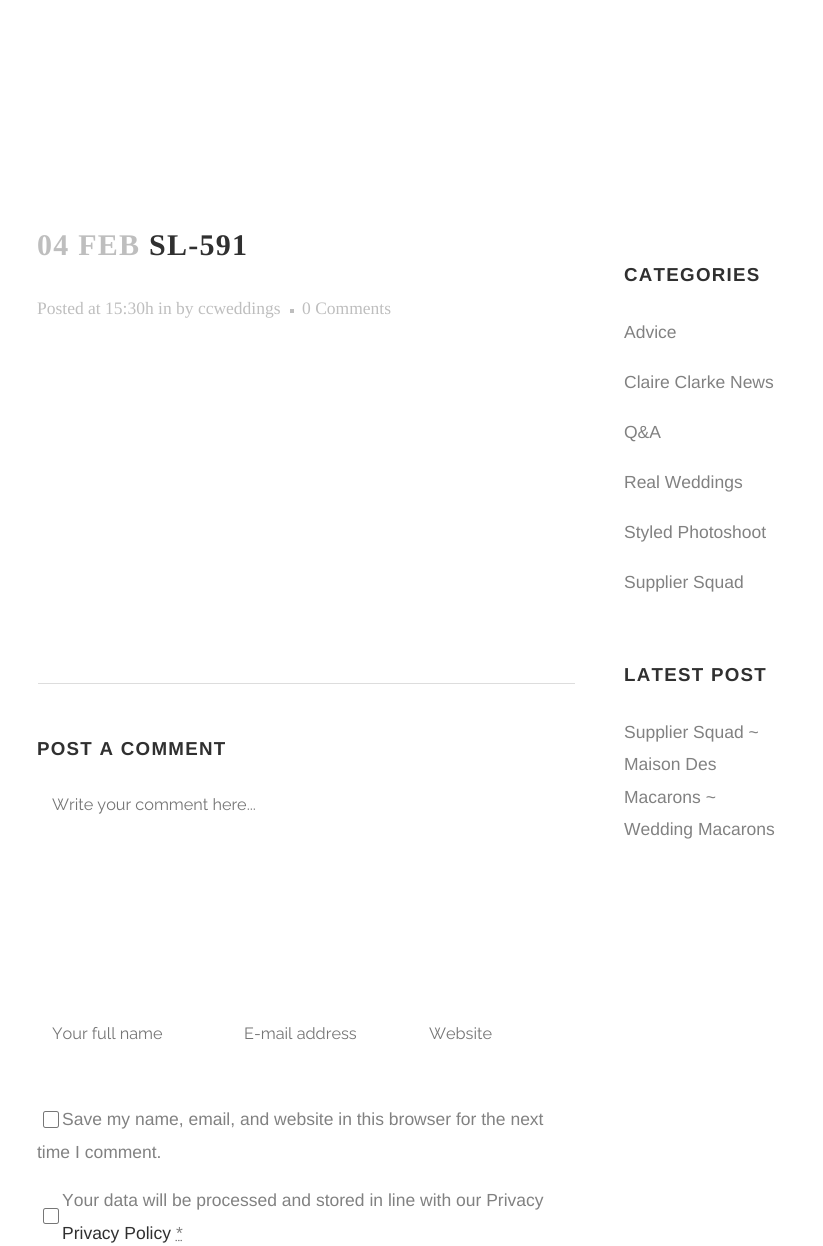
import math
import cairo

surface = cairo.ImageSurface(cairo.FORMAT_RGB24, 823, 1246)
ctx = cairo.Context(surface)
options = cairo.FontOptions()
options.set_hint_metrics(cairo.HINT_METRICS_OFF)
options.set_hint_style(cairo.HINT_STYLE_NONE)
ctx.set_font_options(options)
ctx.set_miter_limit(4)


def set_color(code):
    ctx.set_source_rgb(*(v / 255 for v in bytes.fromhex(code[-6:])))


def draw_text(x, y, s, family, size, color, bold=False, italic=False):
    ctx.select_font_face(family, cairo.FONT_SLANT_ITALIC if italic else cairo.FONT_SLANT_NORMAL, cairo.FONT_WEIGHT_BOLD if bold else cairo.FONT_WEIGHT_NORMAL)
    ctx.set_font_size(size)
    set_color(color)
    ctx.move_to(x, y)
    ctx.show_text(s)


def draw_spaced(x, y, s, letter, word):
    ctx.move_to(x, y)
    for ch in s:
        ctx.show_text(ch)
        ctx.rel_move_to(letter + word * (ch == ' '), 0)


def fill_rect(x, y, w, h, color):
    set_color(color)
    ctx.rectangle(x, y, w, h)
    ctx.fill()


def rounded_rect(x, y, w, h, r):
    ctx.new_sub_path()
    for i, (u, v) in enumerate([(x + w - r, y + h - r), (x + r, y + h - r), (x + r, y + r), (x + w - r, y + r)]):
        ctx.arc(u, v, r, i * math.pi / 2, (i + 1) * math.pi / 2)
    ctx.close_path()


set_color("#ffffff")
ctx.paint()
ctx.select_font_face("Liberation Serif", cairo.FONT_SLANT_NORMAL, cairo.FONT_WEIGHT_BOLD)
ctx.set_font_size(30)
set_color("#bebebe")
draw_spaced(37, 255, "04 FEB", 1.25, 0)
set_color("#303030")
draw_spaced(149, 255, "SL-591", 1.25, 0)
draw_text(37, 314, "Posted at 15:30h in by ccweddings", "Liberation Serif", 17.5, "#bebebe")
fill_rect(290, 309, 4, 4, "#bebebe")
draw_text(302, 314, "0 Comments", "Liberation Serif", 17.5, "#bebebe")
fill_rect(38, 683, 537, 1, "#dddddd")
ctx.select_font_face("Liberation Sans", cairo.FONT_SLANT_NORMAL, cairo.FONT_WEIGHT_BOLD)
ctx.set_font_size(18.75)
set_color("#303030")
draw_spaced(37, 755, "POST A COMMENT", 1.25, 0)
draw_text(52, 810, "Write your comment here...", "Raleway", 16.25, "#757575")
draw_text(52, 1039, "Your full name", "Raleway", 16.25, "#757575")
draw_text(244, 1039, "E-mail address", "Raleway", 16.25, "#757575")
draw_text(429, 1039, "Website", "Raleway", 16.25, "#757575")
rounded_rect(43.5, 1111.5, 15, 16, 2)
set_color("#767676")
ctx.set_line_width(1)
ctx.stroke()
draw_text(62, 1125, "Save my name, email, and website in this browser for the next", "Liberation Sans", 17.5, "#818181")
draw_text(37, 1158, "time I comment.", "Liberation Sans", 17.5, "#818181")
rounded_rect(43.5, 1208.5, 15, 15, 2)
set_color("#767676")
ctx.stroke()
draw_text(62, 1206, "Your data will be processed and stored in line with our Privacy", "Liberation Sans", 17.5, "#818181")
draw_text(62, 1239, "Privacy Policy", "Liberation Sans", 17.5, "#303030")
draw_text(176, 1239, "*", "Liberation Sans", 17.5, "#818181")
ctx.new_path()
ctx.move_to(175.5, 1240.5)
ctx.line_to(177, 1240.5)
ctx.move_to(178, 1240.5)
ctx.line_to(179.5, 1240.5)
ctx.move_to(180.5, 1240.5)
ctx.line_to(182, 1240.5)
ctx.set_line_width(1.2)
ctx.stroke()
ctx.select_font_face("Liberation Sans", cairo.FONT_SLANT_NORMAL, cairo.FONT_WEIGHT_BOLD)
ctx.set_font_size(18.75)
set_color("#303030")
draw_spaced(624, 281, "CATEGORIES", 1.25, 0)
draw_text(624, 338, "Advice", "Liberation Sans", 17.5, "#818181")
draw_text(624, 388, "Claire Clarke News", "Liberation Sans", 17.5, "#818181")
draw_text(624, 438, "Q&A", "Liberation Sans", 17.5, "#818181")
draw_text(624, 488, "Real Weddings", "Liberation Sans", 17.5, "#818181")
draw_text(624, 538, "Styled Photoshoot", "Liberation Sans", 17.5, "#818181")
draw_text(624, 588, "Supplier Squad", "Liberation Sans", 17.5, "#818181")
ctx.select_font_face("Liberation Sans", cairo.FONT_SLANT_NORMAL, cairo.FONT_WEIGHT_BOLD)
ctx.set_font_size(18.75)
set_color("#303030")
draw_spaced(624, 681, "LATEST POST", 1.25, 0)
draw_text(624, 738, "Supplier Squad ~", "Liberation Sans", 17.5, "#818181")
draw_text(624, 770, "Maison Des", "Liberation Sans", 17.5, "#818181")
draw_text(624, 803, "Macarons ~", "Liberation Sans", 17.5, "#818181")
draw_text(624, 835, "Wedding Macarons", "Liberation Sans", 17.5, "#818181")
surface.write_to_png("output.png")
